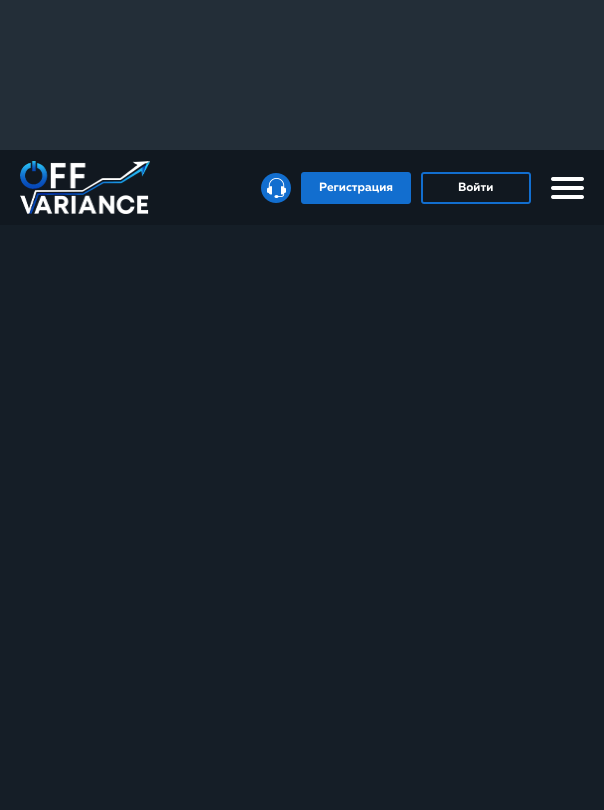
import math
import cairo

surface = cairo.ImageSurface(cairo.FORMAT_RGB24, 604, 810)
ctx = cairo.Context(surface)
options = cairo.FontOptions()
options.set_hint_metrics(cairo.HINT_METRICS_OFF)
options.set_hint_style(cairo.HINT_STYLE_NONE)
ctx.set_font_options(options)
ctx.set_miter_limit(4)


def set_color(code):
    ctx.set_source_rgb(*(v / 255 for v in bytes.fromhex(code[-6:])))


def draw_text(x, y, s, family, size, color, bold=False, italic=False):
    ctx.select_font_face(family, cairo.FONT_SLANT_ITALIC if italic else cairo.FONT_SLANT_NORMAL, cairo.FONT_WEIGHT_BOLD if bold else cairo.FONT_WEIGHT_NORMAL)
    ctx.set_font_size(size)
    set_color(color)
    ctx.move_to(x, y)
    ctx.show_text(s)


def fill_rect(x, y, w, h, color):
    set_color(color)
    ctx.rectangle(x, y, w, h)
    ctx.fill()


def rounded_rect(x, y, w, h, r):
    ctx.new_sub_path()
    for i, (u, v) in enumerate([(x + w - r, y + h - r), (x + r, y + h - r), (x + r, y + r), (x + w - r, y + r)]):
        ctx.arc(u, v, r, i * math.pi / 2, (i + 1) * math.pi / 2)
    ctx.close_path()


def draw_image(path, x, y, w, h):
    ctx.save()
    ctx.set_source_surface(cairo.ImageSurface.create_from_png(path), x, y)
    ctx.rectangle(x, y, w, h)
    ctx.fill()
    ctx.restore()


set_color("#232e38")
ctx.paint()
fill_rect(0, 225, 604, 585, "#151e27")
fill_rect(0, 150, 604, 75, "#111820")
draw_image("assets/img1.png", 20, 161, 130, 53)
set_color("#126ecf")
ctx.arc(276, 188, 14, 0, 2 * math.pi)
ctx.fill_preserve()
ctx.stroke()
draw_image("assets/img2.png", 267, 178, 19, 20)
rounded_rect(302, 173, 108, 30, 2)
ctx.fill_preserve()
ctx.stroke()
draw_text(319, 191, "Регистрация", "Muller", 12, "#ffffff", bold=True)
rounded_rect(422, 173, 108, 30, 2)
set_color("#126ecf")
ctx.stroke()
draw_text(458, 191, "Войти", "Muller", 12, "#ffffff", bold=True)
rounded_rect(551, 186, 33, 4, 2)
ctx.fill()
rounded_rect(551, 177, 33, 4, 2)
ctx.fill()
rounded_rect(551, 195, 33, 4, 2)
ctx.fill()
surface.write_to_png("output.png")
